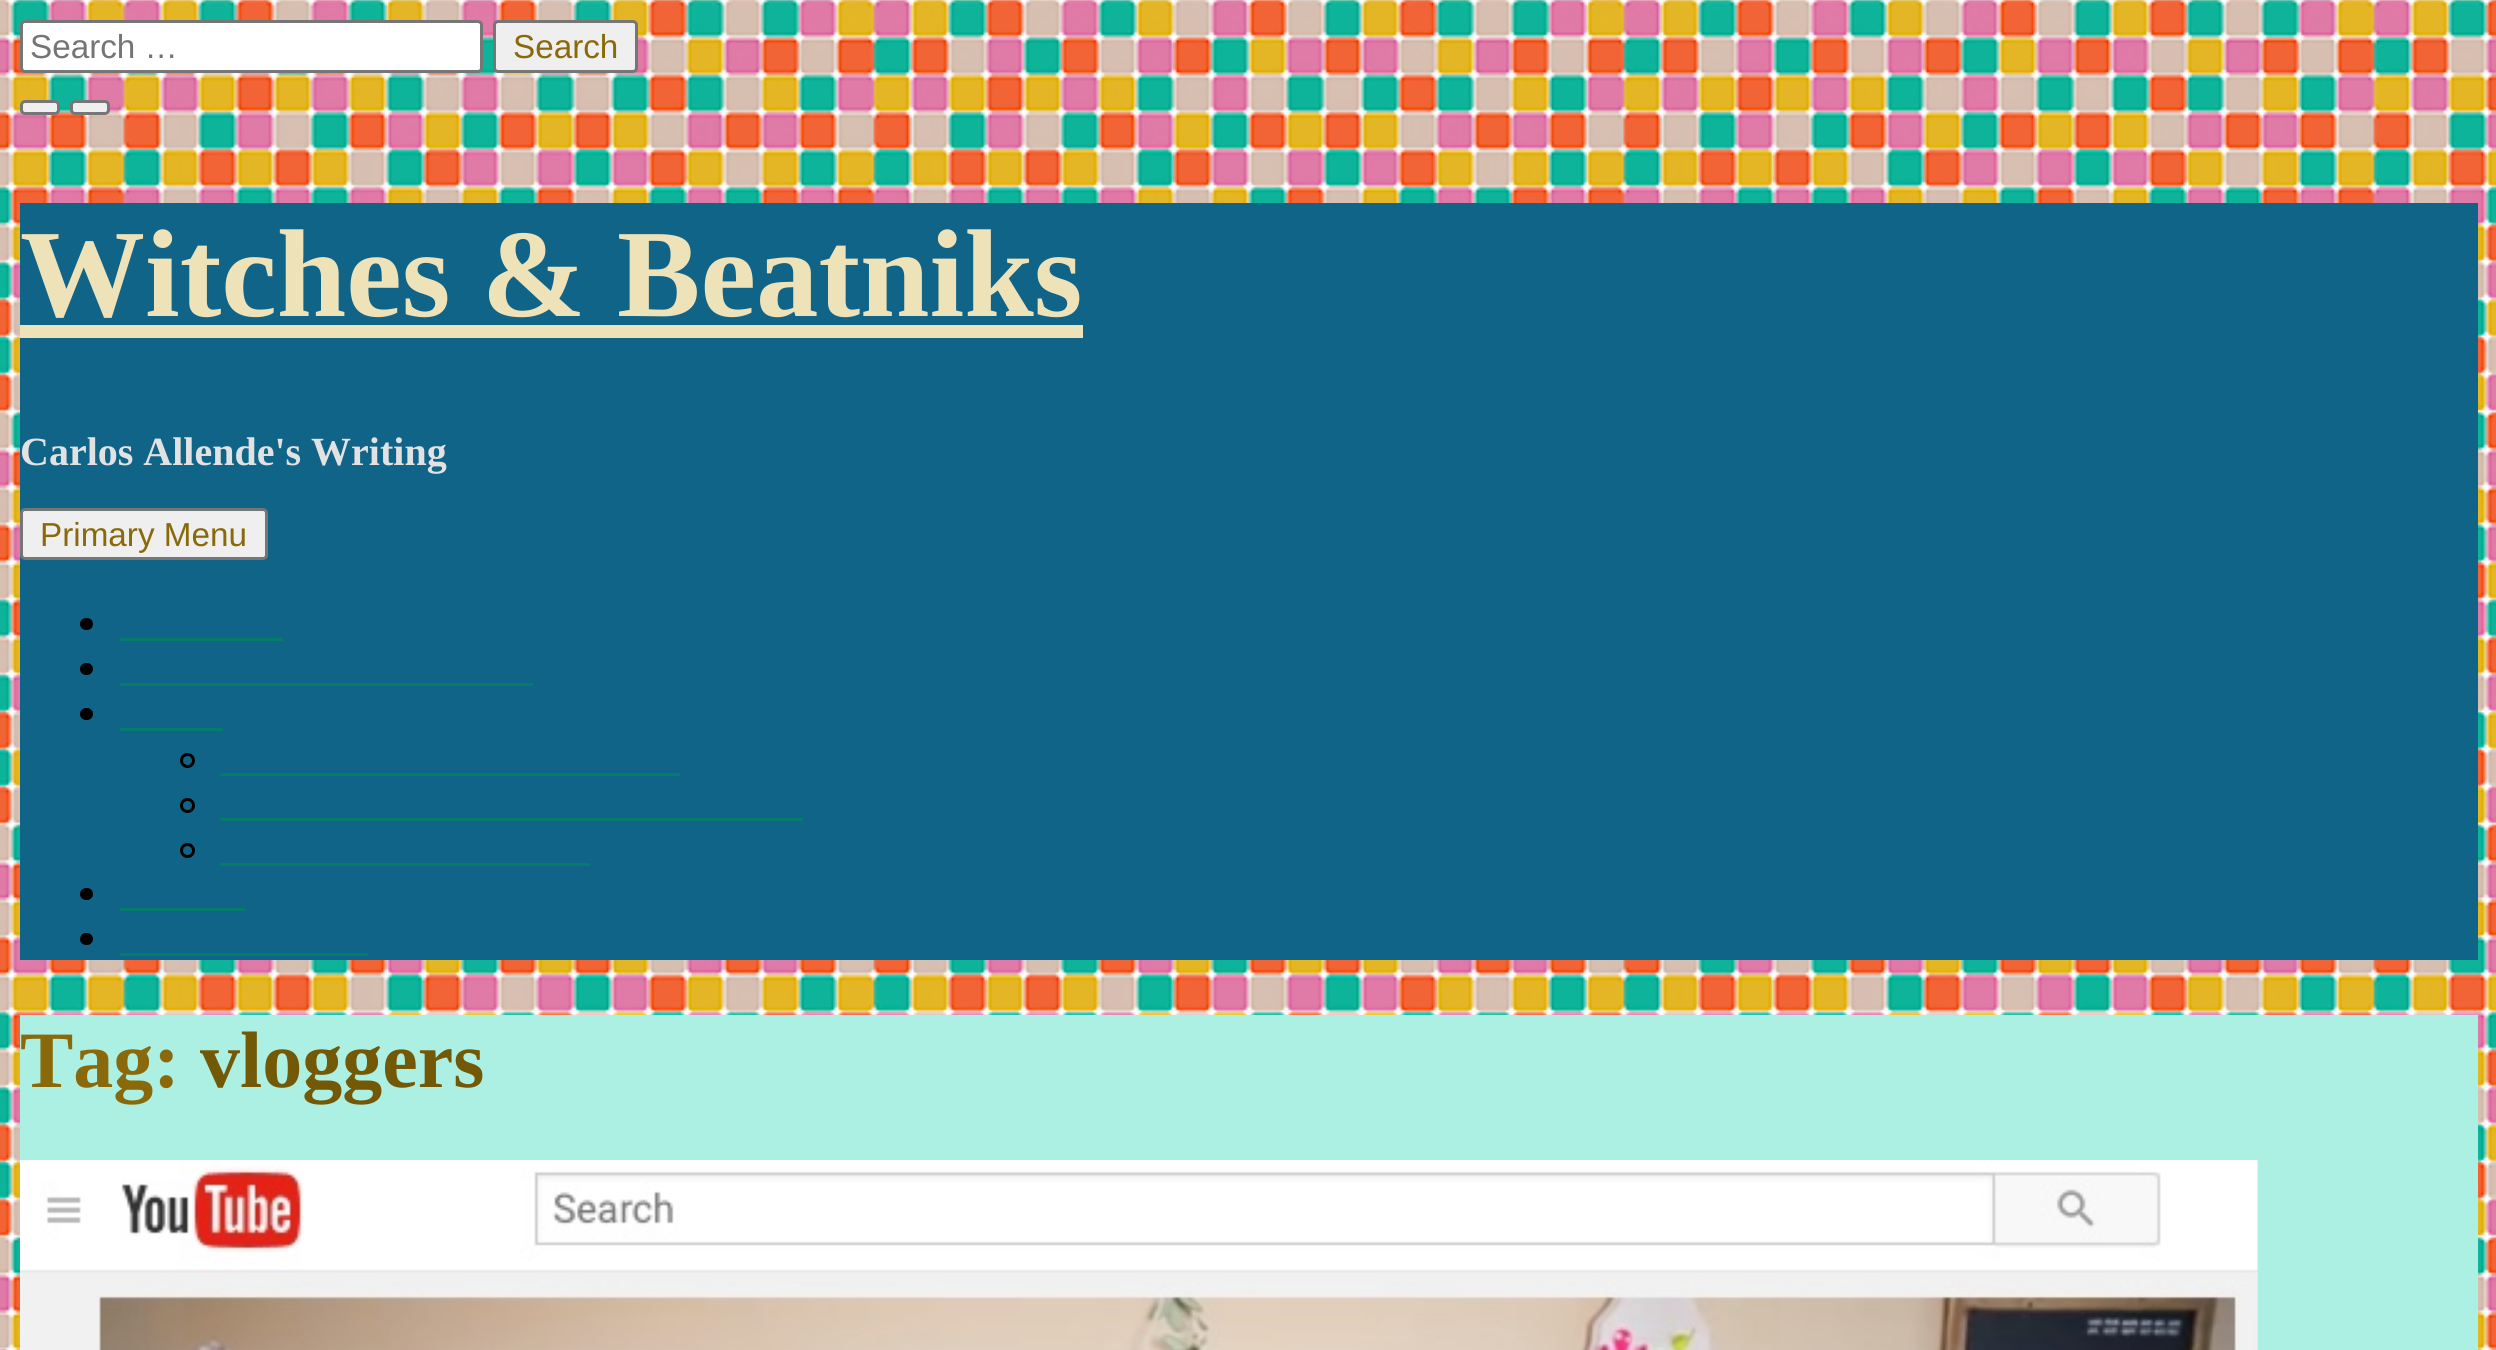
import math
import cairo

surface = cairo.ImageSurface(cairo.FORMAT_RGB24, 2496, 1350)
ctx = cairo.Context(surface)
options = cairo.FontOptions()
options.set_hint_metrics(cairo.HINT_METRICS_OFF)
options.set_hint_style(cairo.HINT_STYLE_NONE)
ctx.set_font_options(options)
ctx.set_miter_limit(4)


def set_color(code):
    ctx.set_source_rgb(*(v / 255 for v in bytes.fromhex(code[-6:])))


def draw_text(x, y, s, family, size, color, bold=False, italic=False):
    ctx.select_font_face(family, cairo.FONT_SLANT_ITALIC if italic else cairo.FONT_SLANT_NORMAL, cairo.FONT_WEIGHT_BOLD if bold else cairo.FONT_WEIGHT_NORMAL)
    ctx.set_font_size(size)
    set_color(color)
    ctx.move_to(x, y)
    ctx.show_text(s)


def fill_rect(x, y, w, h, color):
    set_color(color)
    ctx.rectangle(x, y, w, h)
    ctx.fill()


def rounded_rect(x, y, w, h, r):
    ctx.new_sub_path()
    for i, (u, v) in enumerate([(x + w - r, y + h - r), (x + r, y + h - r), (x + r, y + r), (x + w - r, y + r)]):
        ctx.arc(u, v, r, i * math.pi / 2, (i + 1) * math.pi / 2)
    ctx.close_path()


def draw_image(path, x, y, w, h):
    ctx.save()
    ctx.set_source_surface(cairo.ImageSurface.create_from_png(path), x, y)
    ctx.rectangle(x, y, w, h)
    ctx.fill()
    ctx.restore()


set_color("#ffffff")
ctx.paint()
draw_image("assets/img1.png", 0, 0, 2496, 1350)
set_color("#ffffff")
rounded_rect(21.5, 21.5, 460, 50, 3.5)
ctx.fill_preserve()
set_color("#767676")
ctx.set_line_width(3)
ctx.stroke()
draw_text(30, 58, "Search …", "Liberation Sans", 33.25, "#757575")
set_color("#efefef")
rounded_rect(494.5, 21.5, 142, 50, 3.5)
ctx.fill_preserve()
set_color("#767676")
ctx.stroke()
draw_text(513, 58, "Search", "Liberation Sans", 33.25, "#89690a")
set_color("#efefef")
rounded_rect(21.5, 101.5, 37, 12, 3.5)
ctx.fill_preserve()
set_color("#767676")
ctx.stroke()
set_color("#efefef")
rounded_rect(71.5, 101.5, 37, 12, 3.5)
ctx.fill_preserve()
set_color("#767676")
ctx.stroke()
fill_rect(20, 203, 2458, 757, "#106488")
draw_text(20, 316, "Witches & Beatniks", "Liberation Serif", 125, "#eee2b8", bold=True)
fill_rect(20, 325, 1063, 13, "#eee2b8")
draw_text(20, 465, "Carlos Allende's Writing", "Liberation Serif", 40, "#e2e2e2", bold=True)
set_color("#efefef")
rounded_rect(21.5, 509.5, 245, 49, 3.5)
ctx.fill_preserve()
set_color("#767676")
ctx.stroke()
draw_text(40, 546, "Primary Menu", "Liberation Sans", 33.25, "#89690a")
set_color("#000000")
rounded_rect(80, 618, 13, 12, 6)
ctx.fill()
fill_rect(120, 638, 163, 3, "#037c6a")
set_color("#000000")
rounded_rect(80, 663, 13, 12, 6)
ctx.fill()
fill_rect(120, 683, 413, 3, "#037c6a")
set_color("#000000")
rounded_rect(80, 708, 13, 12, 6)
ctx.fill()
fill_rect(120, 728, 103, 3, "#037c6a")
ctx.arc(187.5, 760.5, 6, 0, 2 * math.pi)
set_color("#000000")
ctx.stroke()
fill_rect(220, 773, 460, 3, "#037c6a")
ctx.arc(187.5, 805.5, 6, 0, 2 * math.pi)
set_color("#000000")
ctx.stroke()
fill_rect(220, 818, 583, 3, "#037c6a")
ctx.arc(187.5, 850.5, 6, 0, 2 * math.pi)
set_color("#000000")
ctx.stroke()
fill_rect(220, 863, 370, 3, "#037c6a")
set_color("#000000")
rounded_rect(80, 888, 13, 12, 6)
ctx.fill()
fill_rect(120, 908, 125, 3, "#037c6a")
set_color("#000000")
rounded_rect(80, 933, 13, 12, 6)
ctx.fill()
fill_rect(120, 953, 248, 3, "#037c6a")
fill_rect(20, 1015, 2458, 335, "#acf0e4")
draw_text(20, 1087, "Tag:", "Liberation Serif", 80, "#89690a", bold=True)
draw_text(200, 1087, "vloggers", "Liberation Serif", 80, "#735806", bold=True)
draw_image("assets/img2.png", 20, 1160, 2238, 190)
surface.write_to_png("output.png")
